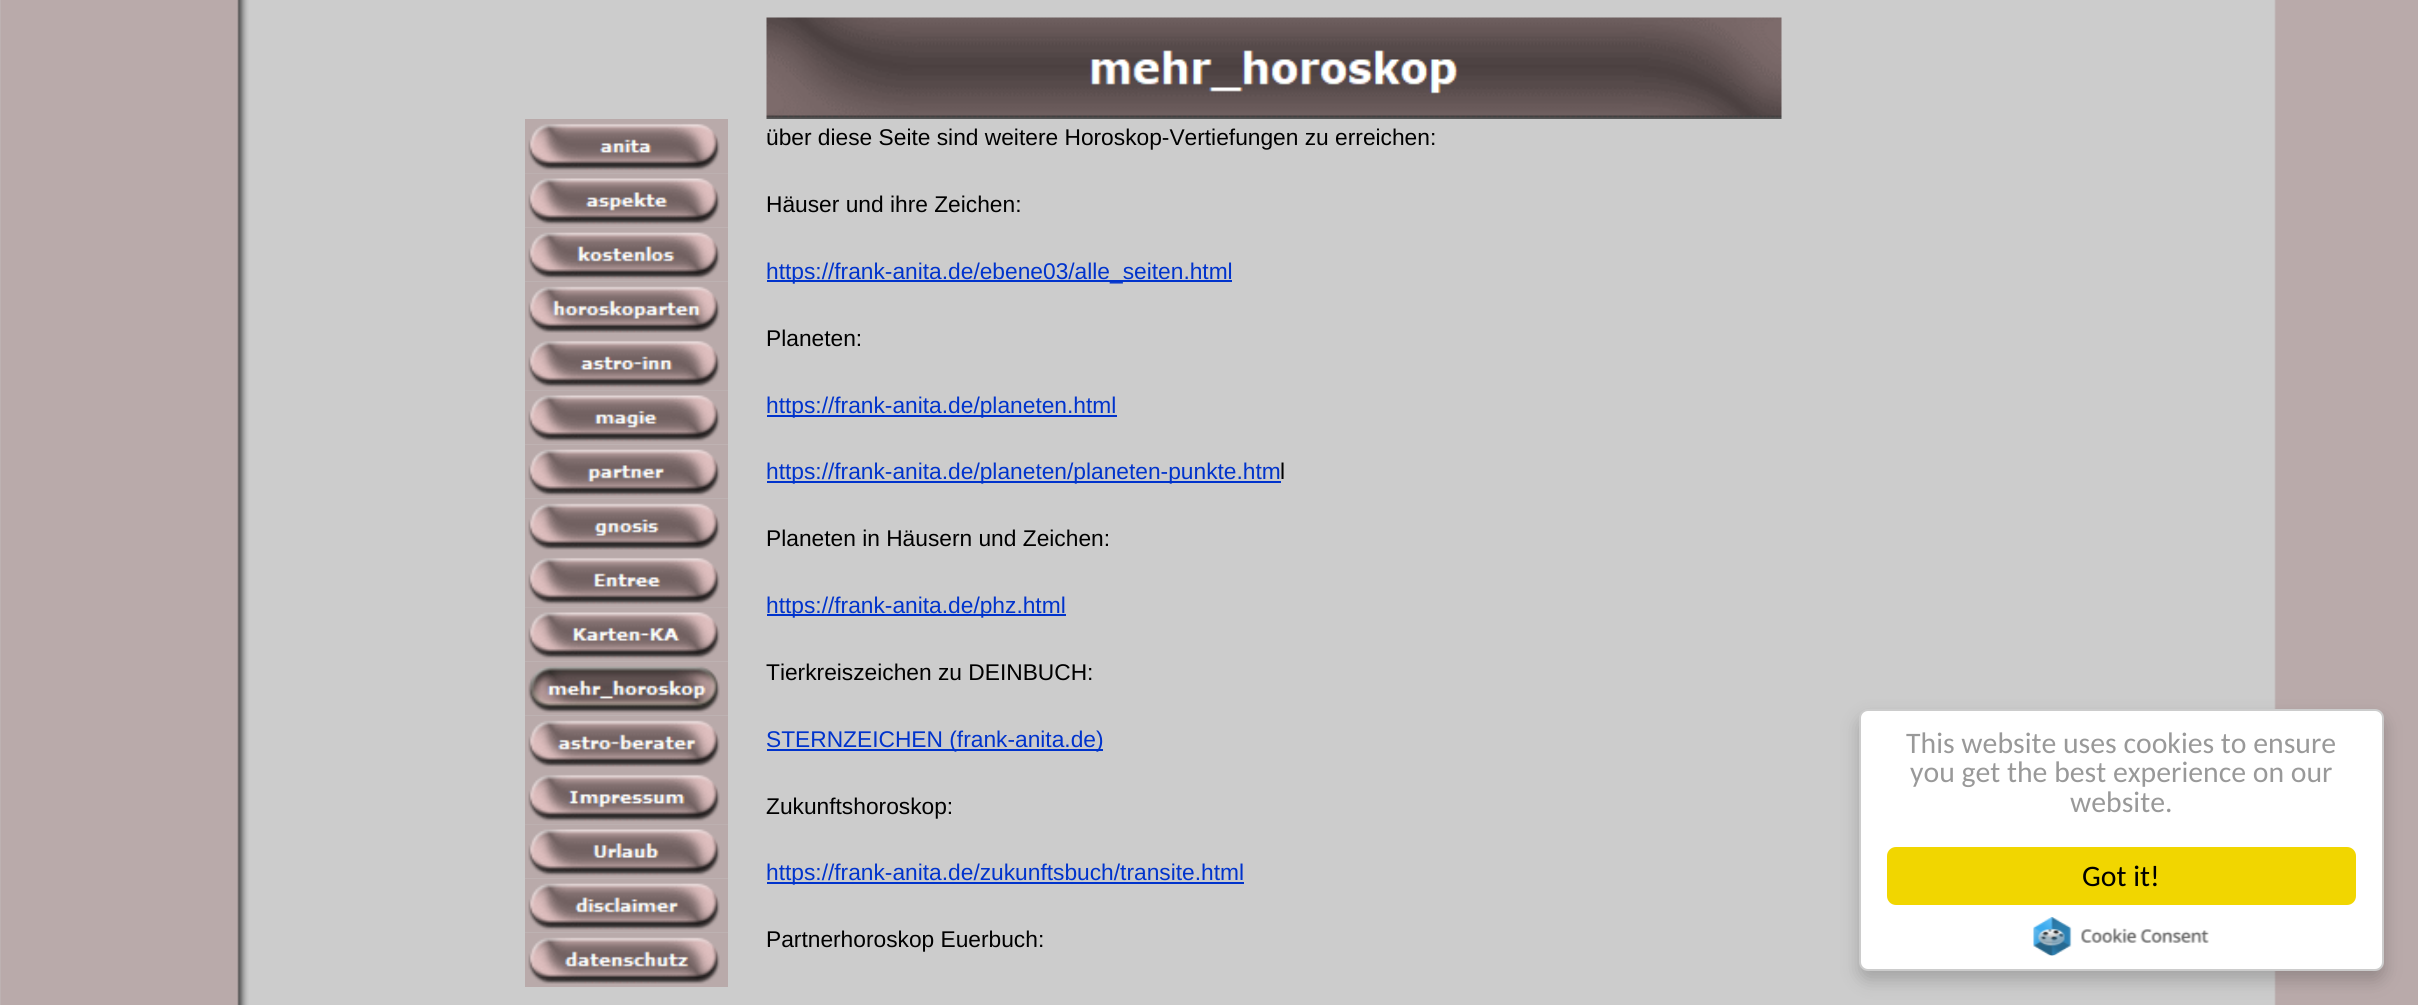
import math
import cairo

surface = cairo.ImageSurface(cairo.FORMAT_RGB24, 2418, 1005)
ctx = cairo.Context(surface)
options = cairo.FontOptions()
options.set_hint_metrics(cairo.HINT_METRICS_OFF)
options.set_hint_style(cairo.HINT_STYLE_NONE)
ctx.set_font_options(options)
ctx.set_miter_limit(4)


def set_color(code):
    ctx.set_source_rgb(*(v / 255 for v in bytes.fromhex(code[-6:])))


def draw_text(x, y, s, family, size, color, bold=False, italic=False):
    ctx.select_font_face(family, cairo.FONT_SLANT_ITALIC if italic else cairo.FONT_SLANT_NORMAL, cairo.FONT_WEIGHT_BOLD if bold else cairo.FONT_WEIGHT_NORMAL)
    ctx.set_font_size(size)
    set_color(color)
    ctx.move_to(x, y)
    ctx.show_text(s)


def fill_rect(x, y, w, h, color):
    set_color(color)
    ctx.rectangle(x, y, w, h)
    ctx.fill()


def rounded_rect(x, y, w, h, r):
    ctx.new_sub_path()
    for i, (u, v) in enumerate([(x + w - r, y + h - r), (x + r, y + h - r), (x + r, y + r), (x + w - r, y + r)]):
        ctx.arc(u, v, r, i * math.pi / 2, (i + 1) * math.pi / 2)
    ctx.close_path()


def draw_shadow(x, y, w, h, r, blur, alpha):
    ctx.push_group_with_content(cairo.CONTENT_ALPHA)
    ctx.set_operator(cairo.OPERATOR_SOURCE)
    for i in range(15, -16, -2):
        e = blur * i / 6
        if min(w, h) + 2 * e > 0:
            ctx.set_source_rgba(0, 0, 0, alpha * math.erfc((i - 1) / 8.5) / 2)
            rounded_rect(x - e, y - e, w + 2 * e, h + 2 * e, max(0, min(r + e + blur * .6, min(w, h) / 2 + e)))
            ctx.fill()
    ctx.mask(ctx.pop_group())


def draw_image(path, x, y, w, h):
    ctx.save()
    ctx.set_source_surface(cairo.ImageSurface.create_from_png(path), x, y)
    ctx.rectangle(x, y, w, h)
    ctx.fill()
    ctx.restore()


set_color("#ffffff")
ctx.paint()
draw_image("assets/img1.png", 0, 0, 2418, 1005)
draw_image("assets/img2.png", 525, 119, 203, 55)
draw_image("assets/img3.png", 525, 173, 203, 55)
draw_image("assets/img4.png", 525, 227, 203, 55)
draw_image("assets/img5.png", 525, 282, 203, 54)
draw_image("assets/img6.png", 525, 336, 203, 55)
draw_image("assets/img7.png", 525, 390, 203, 55)
draw_image("assets/img8.png", 525, 444, 203, 55)
draw_image("assets/img9.png", 525, 499, 203, 54)
draw_image("assets/img10.png", 525, 553, 203, 55)
draw_image("assets/img11.png", 525, 607, 203, 55)
draw_image("assets/img12.png", 525, 661, 203, 55)
draw_image("assets/img13.png", 525, 716, 203, 54)
draw_image("assets/img14.png", 525, 770, 203, 55)
draw_image("assets/img15.png", 525, 824, 203, 55)
draw_image("assets/img16.png", 525, 878, 203, 55)
draw_image("assets/img17.png", 525, 933, 203, 54)
draw_image("assets/img18.png", 766, 17, 1016, 102)
draw_text(766, 145, "über diese Seite sind weitere Horoskop-Vertiefungen zu erreichen:", "Liberation Sans", 22.75, "#000000")
draw_text(766, 212, "Häuser und ihre Zeichen:", "Liberation Sans", 22.75, "#000000")
fill_rect(767, 280, 465, 2, "#0033cc")
draw_text(766, 279, "https://frank-anita.de/ebene03/alle_seiten.html", "Liberation Sans", 22.75, "#0033cc")
draw_text(766, 346, "Planeten:", "Liberation Sans", 22.75, "#000000")
fill_rect(767, 415, 350, 2, "#0033cc")
draw_text(766, 413, "https://frank-anita.de/planeten.html", "Liberation Sans", 22.75, "#0033cc")
fill_rect(767, 481, 514, 2, "#0033cc")
draw_text(766, 479, "https://frank-anita.de/planeten/planeten-punkte.htm", "Liberation Sans", 22.75, "#0033cc")
draw_text(1280, 479, "l", "Liberation Sans", 22.75, "#000000")
draw_text(766, 546, "Planeten in Häusern und Zeichen:", "Liberation Sans", 22.75, "#000000")
fill_rect(767, 614, 299, 2, "#0033cc")
draw_text(766, 613, "https://frank-anita.de/phz.html", "Liberation Sans", 22.75, "#0033cc")
draw_text(766, 680, "Tierkreiszeichen zu DEINBUCH:", "Liberation Sans", 22.75, "#000000")
fill_rect(767, 749, 336, 2, "#0033cc")
draw_text(766, 747, "STERNZEICHEN (frank-anita.de)", "Liberation Sans", 22.75, "#0033cc")
draw_text(766, 814, "Zukunftshoroskop:", "Liberation Sans", 22.75, "#000000")
fill_rect(767, 882, 477, 2, "#0033cc")
draw_text(766, 880, "https://frank-anita.de/zukunftsbuch/transite.html", "Liberation Sans", 22.75, "#0033cc")
draw_text(766, 947, "Partnerhoroskop Euerbuch:", "Liberation Sans", 22.75, "#000000")
set_color("#000000")
draw_shadow(1859, 718, 525, 262, 9, 9, 0.2)
set_color("#ffffff")
rounded_rect(1860, 710, 523, 260, 8)
ctx.fill_preserve()
set_color("#cccccc")
ctx.stroke()
draw_text(1906, 753, "This website uses cookies to ensure", "Carlito", 29.75, "#999999")
draw_text(1910, 782, "you get the best experience on our", "Carlito", 29.75, "#999999")
draw_text(2070, 812, "website.", "Carlito", 29.75, "#999999")
set_color("#f1d600")
rounded_rect(1887, 847, 469, 58, 9)
ctx.fill()
draw_text(2082, 886, "Got it!", "Carlito", 29.75, "#000000")
draw_image("assets/img19.png", 2033, 917, 176, 39)
surface.write_to_png("output.png")
